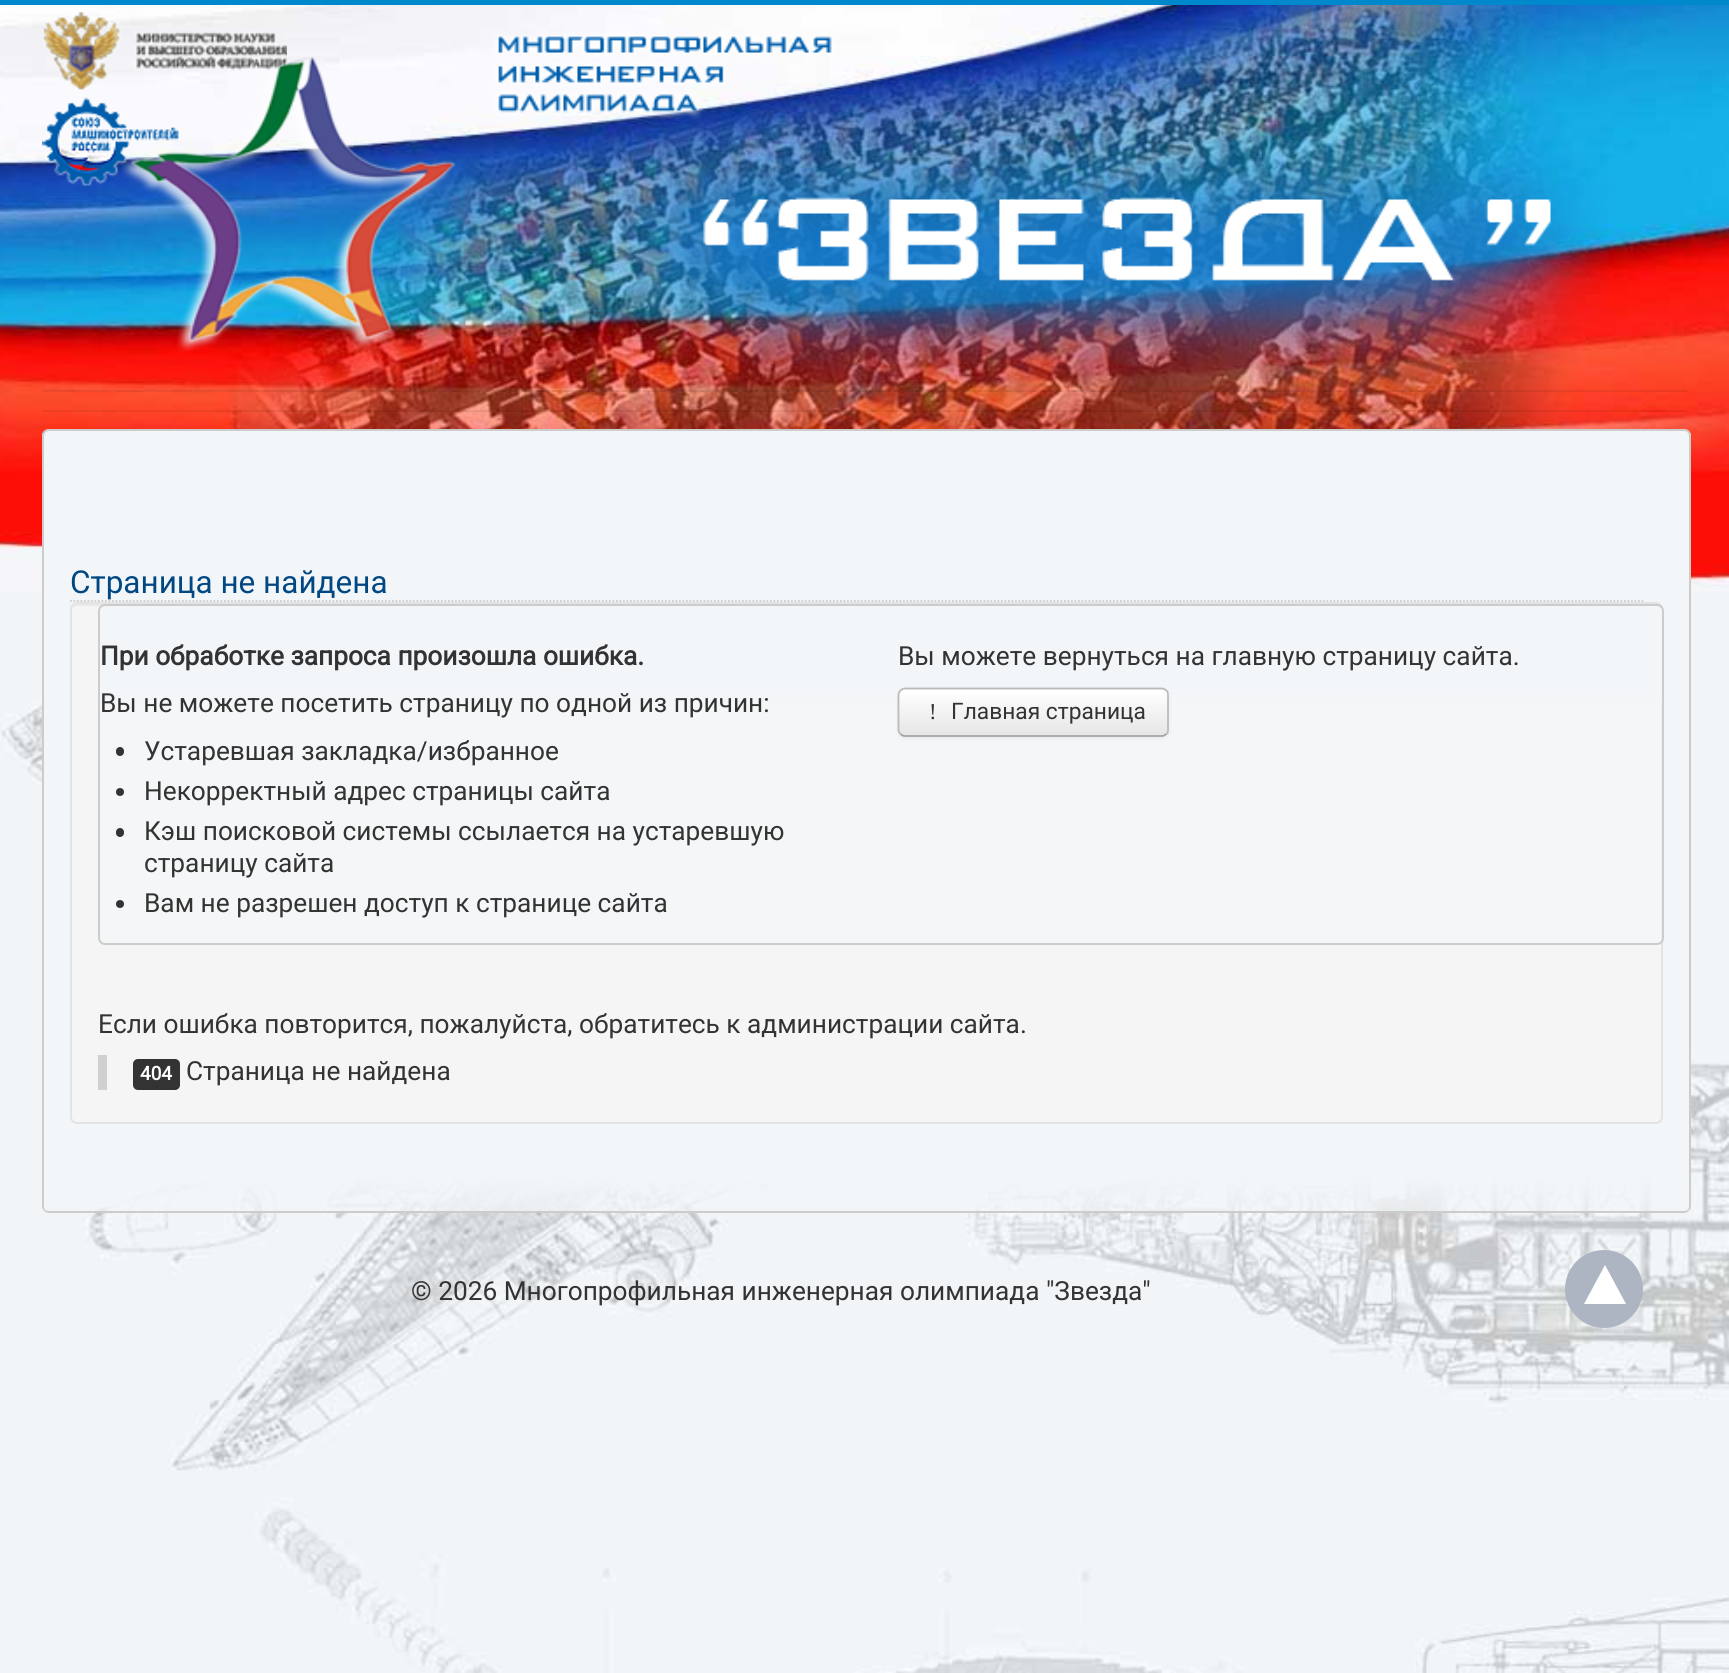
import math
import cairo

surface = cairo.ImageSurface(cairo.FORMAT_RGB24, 1729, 1673)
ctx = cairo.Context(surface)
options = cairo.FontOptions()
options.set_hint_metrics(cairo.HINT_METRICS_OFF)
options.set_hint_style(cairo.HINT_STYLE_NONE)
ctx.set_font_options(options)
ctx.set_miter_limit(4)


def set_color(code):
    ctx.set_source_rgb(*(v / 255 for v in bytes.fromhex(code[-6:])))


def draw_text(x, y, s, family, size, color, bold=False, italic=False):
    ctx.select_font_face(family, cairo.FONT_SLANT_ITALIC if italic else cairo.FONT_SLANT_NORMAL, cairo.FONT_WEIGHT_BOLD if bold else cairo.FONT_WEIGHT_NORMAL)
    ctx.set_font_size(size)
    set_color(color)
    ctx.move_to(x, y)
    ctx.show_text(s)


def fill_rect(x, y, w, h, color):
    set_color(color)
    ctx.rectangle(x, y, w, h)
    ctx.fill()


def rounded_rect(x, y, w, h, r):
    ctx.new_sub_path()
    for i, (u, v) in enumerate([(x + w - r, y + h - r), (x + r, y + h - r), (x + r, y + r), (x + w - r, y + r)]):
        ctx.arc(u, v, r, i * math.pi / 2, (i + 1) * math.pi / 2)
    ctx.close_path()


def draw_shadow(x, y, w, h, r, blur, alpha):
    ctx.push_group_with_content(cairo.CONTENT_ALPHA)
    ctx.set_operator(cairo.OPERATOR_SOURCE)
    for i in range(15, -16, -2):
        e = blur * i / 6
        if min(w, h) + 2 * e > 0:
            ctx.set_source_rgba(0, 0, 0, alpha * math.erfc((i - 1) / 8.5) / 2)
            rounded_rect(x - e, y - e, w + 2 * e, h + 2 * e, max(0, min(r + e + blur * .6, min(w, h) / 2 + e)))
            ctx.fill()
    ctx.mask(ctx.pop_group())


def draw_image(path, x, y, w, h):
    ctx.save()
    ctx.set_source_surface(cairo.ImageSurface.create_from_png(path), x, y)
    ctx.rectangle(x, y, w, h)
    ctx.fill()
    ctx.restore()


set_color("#ffffff")
ctx.paint()
draw_image("assets/img1.png", 0, 5, 1729, 1668)
fill_rect(0, 0, 1729, 5, "#0088cc")
draw_image("assets/img2.png", 42, 11, 245, 175)
draw_image("assets/img3.png", 121, 35, 1487, 352)
ctx.set_source_rgba(0, 0, 0, 0.07)
ctx.rectangle(42, 390, 1645, 2)
ctx.fill()
ctx.rectangle(42, 410, 1645, 2)
ctx.fill()
rounded_rect(43, 430, 1647, 782, 6)
set_color("#cccccc")
ctx.stroke()
gradient = cairo.LinearGradient(866, 465, 866, 1211)
gradient.add_color_stop_rgba(0.95, 0.949, 0.965, 0.976, 1)
gradient.add_color_stop_rgba(1, 0.949, 0.965, 0.976, 0.32)
ctx.set_source(gradient)
ctx.rectangle(44, 632, 1645, 579)
ctx.fill()
ctx.new_path()
ctx.move_to(70, 601)
ctx.line_to(1645, 601)
set_color("#cccccc")
ctx.set_line_width(1.8)
ctx.set_dash([1.75, 1.75])
ctx.stroke()
draw_text(70, 593, "Страница не найдена", "Roboto", 31.5, "#014882")
set_color("#f5f5f5")
rounded_rect(70, 602, 1593, 522, 7)
ctx.fill()
set_color("#e9e9e9")
ctx.new_path()
ctx.move_to(77, 606)
ctx.line_to(1656, 606)
ctx.curve_to(1658, 606, 1661, 608, 1661, 611)
ctx.curve_to(1661, 608, 1660, 604, 1656, 604)
ctx.line_to(77, 604)
ctx.curve_to(73, 604, 72, 608, 72, 611)
ctx.curve_to(72, 608, 74, 606, 77, 606)
ctx.close_path()
ctx.fill()
rounded_rect(71, 603, 1591, 520, 6)
set_color("#e3e3e3")
ctx.set_line_width(2)
ctx.set_dash([])
ctx.stroke()
ctx.save()
rounded_rect(98, 604, 1566, 341, 7)
ctx.clip()
gradient = cairo.LinearGradient(881, 605, 881, 943)
gradient.add_color_stop_rgba(0.25, 0.953, 0.965, 0.976, 1)
gradient.add_color_stop_rgba(0.3, 0.953, 0.965, 0.976, 0.62)
ctx.set_source(gradient)
ctx.rectangle(98, 606, 1566, 337)
ctx.fill()
ctx.restore()
rounded_rect(99, 605, 1564, 339, 6)
set_color("#cccccc")
ctx.stroke()
draw_text(100, 665, "При обработке запроса произошла ошибка.", "Roboto", 26.25, "#333333", bold=True)
draw_text(100, 712, "Вы не можете посетить страницу по одной из причин:", "Roboto", 26.25, "#333333")
rounded_rect(116, 747, 8, 9, 4)
ctx.fill()
draw_text(144, 760, "Устаревшая закладка/избранное", "Roboto", 26.25, "#333333")
ctx.new_path()
ctx.arc(120, 792, 4, 0, 2 * math.pi)
ctx.fill()
draw_text(144, 800, "Некорректный адрес страницы сайта", "Roboto", 26.25, "#333333")
rounded_rect(116, 828, 8, 9, 4)
ctx.fill()
draw_text(144, 840, "Кэш поисковой системы ссылается на устаревшую", "Roboto", 26.25, "#333333")
draw_text(144, 872, "страницу сайта", "Roboto", 26.25, "#333333")
ctx.new_path()
ctx.arc(120, 904, 4, 0, 2 * math.pi)
ctx.fill()
draw_text(144, 912, "Вам не разрешен доступ к странице сайта", "Roboto", 26.25, "#333333")
draw_text(898, 665, "Вы можете вернуться на главную страницу сайта.", "Roboto", 26.25, "#333333")
set_color("#000000")
draw_shadow(898, 690, 271, 49, 7, 2, 0.05)
set_color("#f5f5f5")
rounded_rect(898, 688, 271, 49, 7)
ctx.fill()
ctx.save()
rounded_rect(898, 688, 271, 49, 7)
ctx.clip()
gradient = cairo.LinearGradient(1033, 690, 1033, 735)
gradient.add_color_stop_rgba(0, 1, 1, 1, 1)
gradient.add_color_stop_rgba(1, 0.902, 0.902, 0.902, 1)
ctx.set_source(gradient)
ctx.rectangle(898, 690, 271, 45)
ctx.fill()
ctx.restore()
ctx.new_path()
ctx.move_to(1166.5, 734)
ctx.curve_to(1165, 735, 1163.5, 736, 1162, 736)
ctx.line_to(905, 736)
ctx.curve_to(903, 736, 901.5, 735, 900.5, 734)
set_color("#a2a2a2")
ctx.set_line_width(1.8)
ctx.stroke()
ctx.new_path()
ctx.move_to(900.5, 734)
ctx.curve_to(899.5, 733, 898.5, 731.5, 898.5, 730)
ctx.line_to(898.5, 695)
ctx.curve_to(898.5, 693, 899.5, 691.5, 900.5, 690.5)
ctx.curve_to(901.5, 689.5, 903, 688.5, 905, 688.5)
ctx.line_to(1162, 688.5)
ctx.curve_to(1163.5, 688.5, 1165, 689.5, 1166.5, 690.5)
ctx.curve_to(1167.5, 691.5, 1168, 693, 1168, 695)
ctx.line_to(1168, 730)
ctx.curve_to(1168, 731.5, 1167.5, 733, 1166.5, 734)
set_color("#bbbbbb")
ctx.stroke()
draw_text(929, 719, "!", "Liberation Serif", 22.75, "#333333")
draw_text(951, 719, "Главная страница", "Roboto", 22.75, "#333333")
draw_text(98, 1033, "Если ошибка повторится, пожалуйста, обратитесь к администрации сайта.", "Roboto", 26.25, "#333333")
fill_rect(98, 1055, 9, 35, "#d0d0d0")
set_color("#333333")
rounded_rect(133, 1059, 47, 31, 5)
ctx.fill()
draw_text(140, 1080, "404", "Roboto", 19, "#ffffff", bold=True)
draw_text(186, 1080, "Страница не найдена", "Roboto", 26.25, "#333333")
draw_text(411, 1300, "© 2026 Многопрофильная инженерная олимпиада \"Звезда\"", "Roboto", 26.25, "#333333")
set_color("#aeb5c2")
ctx.new_path()
ctx.arc(1604, 1289, 39, 0, 2 * math.pi)
ctx.fill()
set_color("#ffffff")
ctx.new_path()
ctx.move_to(1626, 1304)
ctx.line_to(1584, 1304)
ctx.line_to(1605, 1265)
ctx.close_path()
ctx.fill()
surface.write_to_png("output.png")
